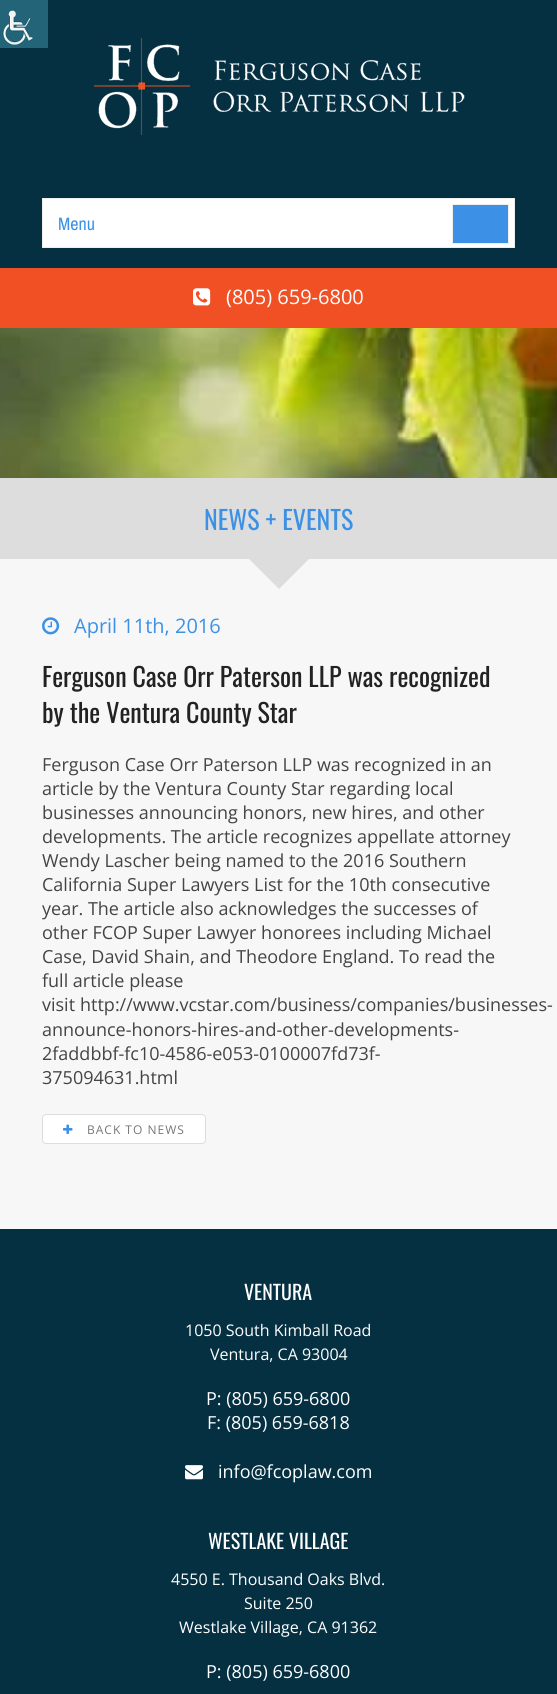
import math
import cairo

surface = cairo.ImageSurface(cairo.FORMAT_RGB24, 557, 1694)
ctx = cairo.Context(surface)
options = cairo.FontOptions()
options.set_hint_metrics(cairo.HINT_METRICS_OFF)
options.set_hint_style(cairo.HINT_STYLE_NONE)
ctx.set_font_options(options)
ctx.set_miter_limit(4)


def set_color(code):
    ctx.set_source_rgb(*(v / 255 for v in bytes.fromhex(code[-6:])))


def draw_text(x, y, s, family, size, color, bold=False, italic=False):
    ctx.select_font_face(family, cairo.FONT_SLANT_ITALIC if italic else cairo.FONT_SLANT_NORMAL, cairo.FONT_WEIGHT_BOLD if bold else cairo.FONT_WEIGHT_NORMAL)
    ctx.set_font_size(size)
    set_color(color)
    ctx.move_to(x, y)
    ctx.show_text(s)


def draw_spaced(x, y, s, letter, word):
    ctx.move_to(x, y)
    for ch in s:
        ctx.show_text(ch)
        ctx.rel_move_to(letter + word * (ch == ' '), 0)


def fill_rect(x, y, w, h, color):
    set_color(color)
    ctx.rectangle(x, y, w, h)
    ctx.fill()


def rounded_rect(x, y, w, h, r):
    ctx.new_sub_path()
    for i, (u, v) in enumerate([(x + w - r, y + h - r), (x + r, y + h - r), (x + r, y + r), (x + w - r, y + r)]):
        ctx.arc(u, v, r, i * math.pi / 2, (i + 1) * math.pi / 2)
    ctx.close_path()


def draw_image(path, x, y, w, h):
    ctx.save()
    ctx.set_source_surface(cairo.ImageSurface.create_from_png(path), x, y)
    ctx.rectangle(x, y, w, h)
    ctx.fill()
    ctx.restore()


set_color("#ffffff")
ctx.paint()
fill_rect(0, 0, 557, 268, "#053042")
draw_image("assets/img1.png", 0, 0, 48, 48)
draw_image("assets/img2.png", 94, 38, 371, 98)
set_color("#ffffff")
ctx.rectangle(42.5, 198.5, 472, 49)
ctx.fill_preserve()
set_color("#eeeeee")
ctx.set_line_width(1)
ctx.stroke()
draw_text(58, 230, "Menu", "Archivo Narrow", 18, "#3c91e6")
ctx.rectangle(452.5, 204.5, 56, 39)
ctx.fill_preserve()
set_color("#eeeeee")
ctx.stroke()
fill_rect(0, 268, 557, 60, "#f15025")
draw_image("assets/img3.png", 193, 288, 18, 18)
draw_text(226, 304, "(805) 659-6800", "Open Sans", 20, "#ffffff")
draw_image("assets/img4.png", 0, 328, 557, 150)
fill_rect(0, 478, 557, 81, "#dddddd")
draw_text(204, 530, "NEWS + EVENTS", "Oswald", 26, "#3c91e6")
fill_rect(0, 559, 557, 670, "#f7f7f7")
set_color("#dddddd")
ctx.new_path()
ctx.move_to(248, 558)
ctx.line_to(310, 558)
ctx.line_to(279, 589)
ctx.close_path()
ctx.fill()
draw_image("assets/img5.png", 42, 617, 18, 18)
draw_text(74, 633, "April 11th, 2016", "Open Sans", 20, "#3c91e6")
draw_text(42, 687, "Ferguson Case Orr Paterson LLP was recognized", "Oswald", 26, "#222222")
draw_text(42, 723, "by the Ventura County Star", "Oswald", 26, "#222222")
draw_text(42, 771, "Ferguson Case Orr Paterson LLP was recognized in an", "Open Sans", 18, "#444444")
draw_text(42, 795, "article by the Ventura County Star regarding local", "Open Sans", 18, "#444444")
draw_text(42, 819, "businesses announcing honors, new hires, and other", "Open Sans", 18, "#444444")
draw_text(42, 843, "developments. The article recognizes appellate attorney", "Open Sans", 18, "#444444")
draw_text(42, 867, "Wendy Lascher being named to the 2016 Southern", "Open Sans", 18, "#444444")
draw_text(42, 891, "California Super Lawyers List for the 10th consecutive", "Open Sans", 18, "#444444")
draw_text(42, 915, "year. The article also acknowledges the successes of", "Open Sans", 18, "#444444")
draw_text(42, 939, "other FCOP Super Lawyer honorees including Michael", "Open Sans", 18, "#444444")
draw_text(42, 963, "Case, David Shain, and Theodore England. To read the", "Open Sans", 18, "#444444")
draw_text(42, 987, "full article please", "Open Sans", 18, "#444444")
draw_text(42, 1011, "visit", "Open Sans", 18, "#444444")
draw_text(80, 1011, "http://www.vcstar.com/business/companies/businesses-", "Open Sans", 18, "#444444")
draw_text(42, 1036, "announce-honors-hires-and-other-developments-", "Open Sans", 18, "#444444")
draw_text(42, 1060, "2faddbbf-fc10-4586-e053-0100007fd73f-", "Open Sans", 18, "#444444")
draw_text(42, 1084, "375094631.html", "Open Sans", 18, "#444444")
set_color("#ffffff")
rounded_rect(42.5, 1114.5, 163, 29, 3.5)
ctx.fill_preserve()
set_color("#dddddd")
ctx.stroke()
draw_image("assets/img6.png", 63, 1124, 10, 10)
ctx.set_font_size(12)
set_color("#777777")
draw_spaced(87, 1134, "BACK TO NEWS", 1, 0)
fill_rect(0, 1229, 557, 465, "#053042")
draw_text(244, 1300, "VENTURA", "Oswald", 20, "#ffffff")
draw_text(185, 1336, "1050 South Kimball Road", "Open Sans", 16, "#ffffff")
draw_text(210, 1360, "Ventura, CA 93004", "Open Sans", 16, "#ffffff")
draw_text(206, 1405, "P: (805) 659-6800", "Open Sans", 18, "#ffffff")
draw_text(207, 1429, "F: (805) 659-6818", "Open Sans", 18, "#ffffff")
draw_image("assets/img7.png", 185, 1465, 18, 15)
draw_text(218, 1478, "info@fcoplaw.com", "Open Sans", 18, "#ffffff")
draw_text(208, 1549, "WESTLAKE VILLAGE", "Oswald", 20, "#ffffff")
draw_text(171, 1585, "4550 E. Thousand Oaks Blvd.", "Open Sans", 16, "#ffffff")
draw_text(244, 1609, "Suite 250", "Open Sans", 16, "#ffffff")
draw_text(179, 1633, "Westlake Village, CA 91362", "Open Sans", 16, "#ffffff")
draw_text(206, 1678, "P: (805) 659-6800", "Open Sans", 18, "#ffffff")
surface.write_to_png("output.png")
